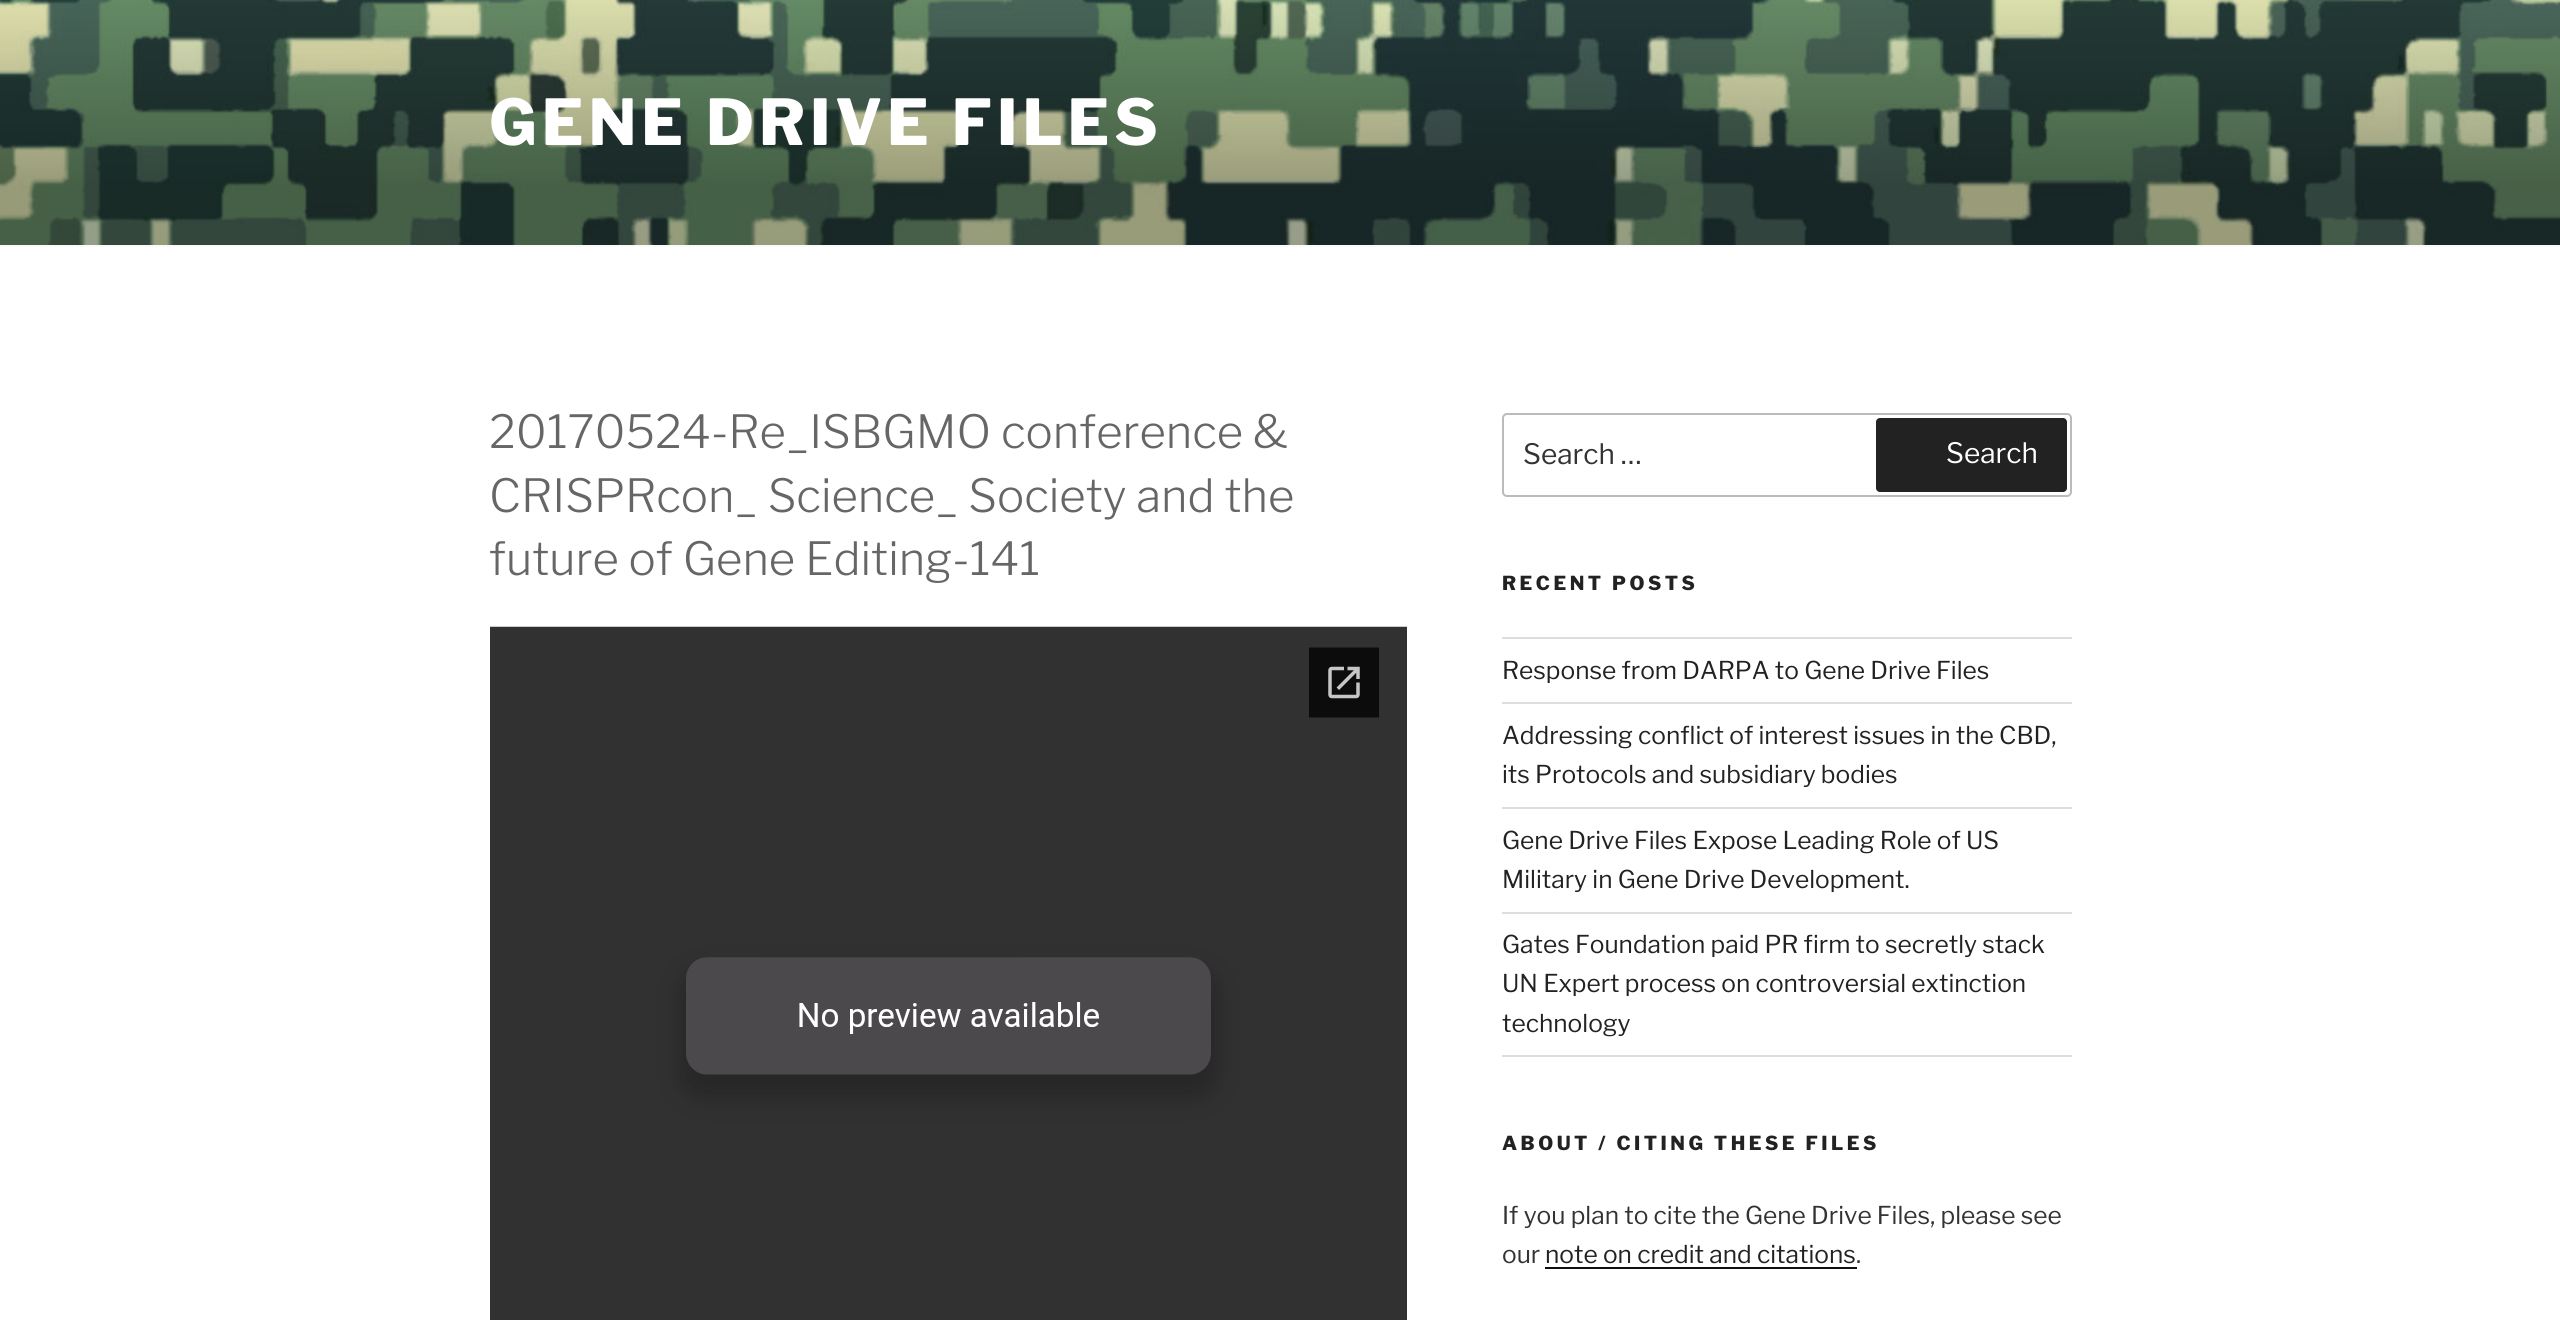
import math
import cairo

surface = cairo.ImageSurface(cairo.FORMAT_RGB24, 2560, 1320)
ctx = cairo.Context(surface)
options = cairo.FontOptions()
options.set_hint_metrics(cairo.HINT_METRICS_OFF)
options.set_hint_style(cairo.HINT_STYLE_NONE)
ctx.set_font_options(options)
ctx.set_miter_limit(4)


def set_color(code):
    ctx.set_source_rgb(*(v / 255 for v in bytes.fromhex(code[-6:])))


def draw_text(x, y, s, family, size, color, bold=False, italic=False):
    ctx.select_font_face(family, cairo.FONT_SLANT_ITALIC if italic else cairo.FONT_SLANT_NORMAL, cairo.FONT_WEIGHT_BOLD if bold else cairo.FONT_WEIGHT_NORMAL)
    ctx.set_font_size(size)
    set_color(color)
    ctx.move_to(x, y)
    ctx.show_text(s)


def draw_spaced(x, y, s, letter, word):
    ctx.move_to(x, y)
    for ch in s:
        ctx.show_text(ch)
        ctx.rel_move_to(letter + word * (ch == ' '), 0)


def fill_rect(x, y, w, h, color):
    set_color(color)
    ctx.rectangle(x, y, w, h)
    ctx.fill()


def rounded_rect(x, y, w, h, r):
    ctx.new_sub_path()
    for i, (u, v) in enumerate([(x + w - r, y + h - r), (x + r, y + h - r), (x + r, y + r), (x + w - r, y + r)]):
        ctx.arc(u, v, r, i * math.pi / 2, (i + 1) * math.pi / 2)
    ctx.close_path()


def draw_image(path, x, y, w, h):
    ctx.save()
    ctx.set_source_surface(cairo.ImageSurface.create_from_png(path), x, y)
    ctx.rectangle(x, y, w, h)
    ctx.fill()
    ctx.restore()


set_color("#ffffff")
ctx.paint()
fill_rect(0, 245, 2560, 2, "#fafafa")
draw_image("assets/img1.png", 0, 0, 2560, 245)
ctx.select_font_face("Libre Franklin ExtraBold")
ctx.set_font_size(63)
set_color("#ffffff")
draw_spaced(489, 145, "GENE DRIVE FILES", 5, 0)
draw_text(489, 448, "20170524-Re_ISBGMO conference &", "Libre Franklin Light", 45.5, "#666666")
draw_text(489, 512, "CRISPRcon_ Science_ Society and the", "Libre Franklin Light", 45.5, "#666666")
draw_text(489, 575, "future of Gene Editing-141", "Libre Franklin Light", 45.5, "#666666")
draw_image("assets/img2.png", 490, 626, 917, 694)
rounded_rect(1503, 414, 568, 82, 4)
set_color("#bbbbbb")
ctx.stroke()
draw_text(1523, 464, "Search …", "Libre Franklin", 28, "#333333")
set_color("#222222")
rounded_rect(1876, 418, 191, 74, 4)
ctx.fill()
draw_text(1946, 463, "Search", "Libre Franklin", 28, "#ffffff")
ctx.select_font_face("Libre Franklin ExtraBold")
ctx.set_font_size(19.25)
set_color("#222222")
draw_spaced(1502, 590, "RECENT POSTS", 3.5, 0)
fill_rect(1502, 637, 570, 2, "#dddddd")
fill_rect(1502, 702, 570, 2, "#dddddd")
draw_text(1502, 679, "Response from DARPA to Gene Drive Files", "Libre Franklin", 24.5, "#222222")
fill_rect(1502, 807, 570, 2, "#dddddd")
draw_text(1502, 744, "Addressing conflict of interest issues in the CBD,", "Libre Franklin", 24.5, "#222222")
draw_text(1502, 783, "its Protocols and subsidiary bodies", "Libre Franklin", 24.5, "#222222")
fill_rect(1502, 912, 570, 2, "#dddddd")
draw_text(1502, 849, "Gene Drive Files Expose Leading Role of US", "Libre Franklin", 24.5, "#222222")
draw_text(1502, 888, "Military in Gene Drive Development.", "Libre Franklin", 24.5, "#222222")
fill_rect(1502, 1055, 570, 2, "#dddddd")
draw_text(1502, 953, "Gates Foundation paid PR firm to secretly stack", "Libre Franklin", 24.5, "#222222")
draw_text(1502, 992, "UN Expert process on controversial extinction", "Libre Franklin", 24.5, "#222222")
draw_text(1502, 1032, "technology", "Libre Franklin", 24.5, "#222222")
ctx.select_font_face("Libre Franklin ExtraBold")
ctx.set_font_size(19.25)
draw_spaced(1502, 1150, "ABOUT / CITING THESE FILES", 3.5, 0)
draw_text(1502, 1224, "If you plan to cite the Gene Drive Files, please see", "Libre Franklin", 24.5, "#333333")
draw_text(1502, 1263, "our", "Libre Franklin", 24.5, "#333333")
draw_text(1545, 1263, "note on credit and citations", "Libre Franklin", 24.5, "#222222")
fill_rect(1545, 1267, 312, 2, "#0f0f0f")
draw_text(1856, 1263, ".", "Libre Franklin", 24.5, "#333333")
surface.write_to_png("output.png")
